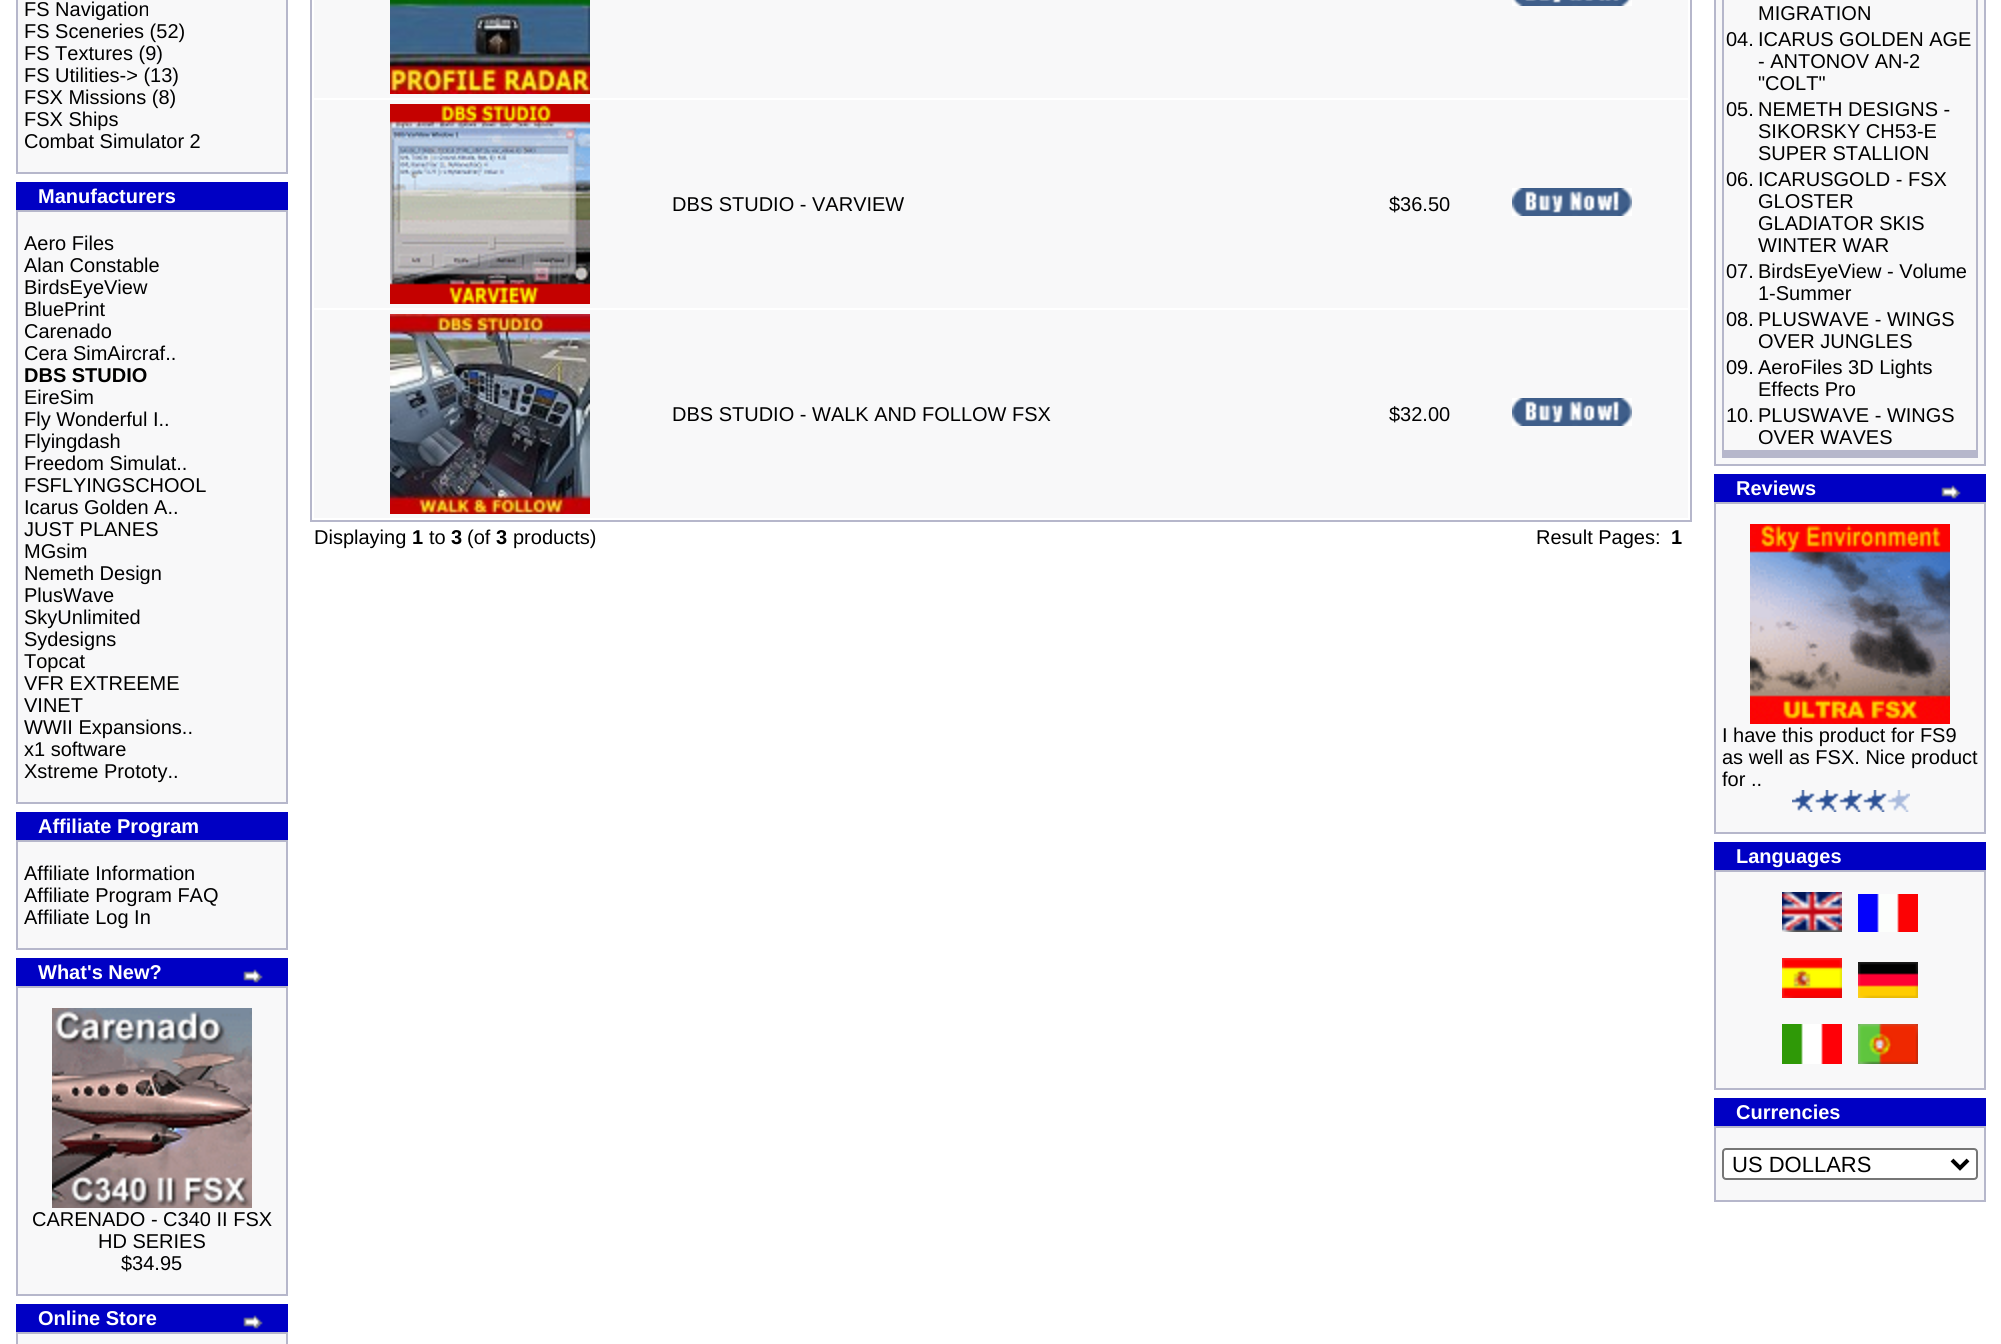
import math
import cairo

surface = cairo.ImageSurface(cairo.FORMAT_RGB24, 2001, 1344)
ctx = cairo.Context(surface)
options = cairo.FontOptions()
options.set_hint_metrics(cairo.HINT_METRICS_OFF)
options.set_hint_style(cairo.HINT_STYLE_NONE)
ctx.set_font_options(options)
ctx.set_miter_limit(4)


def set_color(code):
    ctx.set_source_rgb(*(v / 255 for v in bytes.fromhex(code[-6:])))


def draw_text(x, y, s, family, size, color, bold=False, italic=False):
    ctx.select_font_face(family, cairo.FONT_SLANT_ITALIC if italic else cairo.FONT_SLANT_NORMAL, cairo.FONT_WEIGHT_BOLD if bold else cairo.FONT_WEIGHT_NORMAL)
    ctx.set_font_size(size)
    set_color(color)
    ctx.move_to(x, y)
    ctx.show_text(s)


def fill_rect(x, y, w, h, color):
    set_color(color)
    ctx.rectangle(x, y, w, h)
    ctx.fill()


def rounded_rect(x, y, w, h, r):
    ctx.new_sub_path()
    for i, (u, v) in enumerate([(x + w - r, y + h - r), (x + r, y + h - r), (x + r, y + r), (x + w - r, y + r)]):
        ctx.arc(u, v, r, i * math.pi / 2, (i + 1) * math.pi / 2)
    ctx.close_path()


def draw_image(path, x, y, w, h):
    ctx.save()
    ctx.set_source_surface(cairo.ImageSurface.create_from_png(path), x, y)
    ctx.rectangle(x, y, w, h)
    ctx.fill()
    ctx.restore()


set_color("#ffffff")
ctx.paint()
fill_rect(16, 0, 272, 174, "#b6b7cb")
fill_rect(18, 0, 268, 172, "#f8f8f9")
draw_text(24, 16, "FS Navigation", "Liberation Sans", 20, "#000000")
draw_text(24, 38, "FS Sceneries (52)", "Liberation Sans", 20, "#000000")
draw_text(24, 60, "FS Textures (9)", "Liberation Sans", 20, "#000000")
draw_text(24, 82, "FS Utilities-> (13)", "Liberation Sans", 20, "#000000")
draw_text(24, 104, "FSX Missions (8)", "Liberation Sans", 20, "#000000")
draw_text(24, 126, "FSX Ships", "Liberation Sans", 20, "#000000")
draw_text(24, 148, "Combat Simulator 2", "Liberation Sans", 20, "#000000")
fill_rect(16, 182, 272, 28, "#0000c4")
draw_text(38, 203, "Manufacturers", "Liberation Sans", 20, "#ffffff", bold=True)
fill_rect(16, 210, 272, 594, "#b6b7cb")
fill_rect(18, 212, 268, 590, "#f8f8f9")
draw_text(24, 250, "Aero Files", "Liberation Sans", 20, "#000000")
draw_text(24, 272, "Alan Constable", "Liberation Sans", 20, "#000000")
draw_text(24, 294, "BirdsEyeView", "Liberation Sans", 20, "#000000")
draw_text(24, 316, "BluePrint", "Liberation Sans", 20, "#000000")
draw_text(24, 338, "Carenado", "Liberation Sans", 20, "#000000")
draw_text(24, 360, "Cera SimAircraf..", "Liberation Sans", 20, "#000000")
draw_text(24, 382, "DBS STUDIO", "Liberation Sans", 20, "#000000", bold=True)
draw_text(24, 404, "EireSim", "Liberation Sans", 20, "#000000")
draw_text(24, 426, "Fly Wonderful I..", "Liberation Sans", 20, "#000000")
draw_text(24, 448, "Flyingdash", "Liberation Sans", 20, "#000000")
draw_text(24, 470, "Freedom Simulat..", "Liberation Sans", 20, "#000000")
draw_text(24, 492, "FSFLYINGSCHOOL", "Liberation Sans", 20, "#000000")
draw_text(24, 514, "Icarus Golden A..", "Liberation Sans", 20, "#000000")
draw_text(24, 536, "JUST PLANES", "Liberation Sans", 20, "#000000")
draw_text(24, 558, "MGsim", "Liberation Sans", 20, "#000000")
draw_text(24, 580, "Nemeth Design", "Liberation Sans", 20, "#000000")
draw_text(24, 602, "PlusWave", "Liberation Sans", 20, "#000000")
draw_text(24, 624, "SkyUnlimited", "Liberation Sans", 20, "#000000")
draw_text(24, 646, "Sydesigns", "Liberation Sans", 20, "#000000")
draw_text(24, 668, "Topcat", "Liberation Sans", 20, "#000000")
draw_text(24, 690, "VFR EXTREEME", "Liberation Sans", 20, "#000000")
draw_text(24, 712, "VINET", "Liberation Sans", 20, "#000000")
draw_text(24, 734, "WWII Expansions..", "Liberation Sans", 20, "#000000")
draw_text(24, 756, "x1 software", "Liberation Sans", 20, "#000000")
draw_text(24, 778, "Xstreme Prototy..", "Liberation Sans", 20, "#000000")
fill_rect(16, 812, 272, 28, "#0000c4")
draw_text(38, 833, "Affiliate Program", "Liberation Sans", 20, "#ffffff", bold=True)
fill_rect(16, 840, 272, 110, "#b6b7cb")
fill_rect(18, 842, 268, 106, "#f8f8f9")
draw_text(24, 880, "Affiliate Information", "Liberation Sans", 20, "#000000")
draw_text(24, 902, "Affiliate Program FAQ", "Liberation Sans", 20, "#000000")
draw_text(24, 924, "Affiliate Log In", "Liberation Sans", 20, "#000000")
fill_rect(16, 958, 272, 28, "#0000c4")
draw_text(38, 979, "What's New?", "Liberation Sans", 20, "#ffffff", bold=True)
draw_image("assets/img1.png", 243, 969, 20, 14)
fill_rect(16, 986, 272, 310, "#b6b7cb")
fill_rect(18, 988, 268, 306, "#f8f8f9")
draw_image("assets/img2.png", 52, 1008, 200, 200)
draw_text(32, 1226, "CARENADO - C340 II FSX", "Liberation Sans", 20, "#000000")
draw_text(98, 1248, "HD SERIES", "Liberation Sans", 20, "#000000")
draw_text(121, 1270, "$34.95", "Liberation Sans", 20, "#000000")
fill_rect(16, 1304, 272, 28, "#0000c4")
draw_text(38, 1325, "Online Store", "Liberation Sans", 20, "#ffffff", bold=True)
draw_image("assets/img1.png", 243, 1315, 20, 14)
fill_rect(16, 1332, 272, 12, "#b6b7cb")
fill_rect(18, 1334, 268, 10, "#f8f8f9")
ctx.rectangle(311, -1, 1380, 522)
set_color("#b6b7cb")
ctx.stroke()
fill_rect(314, 0, 1374, 98, "#f8f8f9")
draw_image("assets/img3.png", 390, 0, 200, 94)
draw_image("assets/img4.png", 1512, 0, 120, 6)
fill_rect(314, 100, 1374, 208, "#f8f8f9")
draw_image("assets/img5.png", 390, 104, 200, 200)
draw_text(672, 211, "DBS STUDIO - VARVIEW", "Liberation Sans", 20, "#000000")
draw_text(1389, 211, "$36.50", "Liberation Sans", 20, "#000000")
draw_image("assets/img6.png", 1512, 188, 120, 28)
fill_rect(314, 310, 1374, 208, "#f8f8f9")
draw_image("assets/img7.png", 390, 314, 200, 200)
draw_text(672, 421, "DBS STUDIO - WALK AND FOLLOW FSX", "Liberation Sans", 20, "#000000")
draw_text(1389, 421, "$32.00", "Liberation Sans", 20, "#000000")
draw_image("assets/img6.png", 1512, 398, 120, 28)
draw_text(314, 544, "Displaying", "Liberation Sans", 20, "#000000")
draw_text(412, 544, "1", "Liberation Sans", 20, "#000000", bold=True)
draw_text(429, 544, "to", "Liberation Sans", 20, "#000000")
draw_text(451, 544, "3", "Liberation Sans", 20, "#000000", bold=True)
draw_text(467, 544, "(of", "Liberation Sans", 20, "#000000")
draw_text(496, 544, "3", "Liberation Sans", 20, "#000000", bold=True)
draw_text(513, 544, "products)", "Liberation Sans", 20, "#000000")
draw_text(1536, 544, "Result Pages:", "Liberation Sans", 20, "#000000")
draw_text(1671, 544, "1", "Liberation Sans", 20, "#000000", bold=True)
fill_rect(1714, 0, 272, 466, "#b6b7cb")
fill_rect(1716, 0, 268, 464, "#f8f8f9")
fill_rect(1722, 0, 256, 458, "#b6b7cb")
fill_rect(1724, 0, 252, 450, "#f8f8f9")
draw_text(1758, 20, "MIGRATION", "Liberation Sans", 20, "#000000")
draw_text(1726, 46, "04.", "Liberation Sans", 20, "#000000")
draw_text(1758, 46, "ICARUS GOLDEN AGE", "Liberation Sans", 20, "#000000")
draw_text(1758, 68, "- ANTONOV AN-2", "Liberation Sans", 20, "#000000")
draw_text(1758, 90, "\"COLT\"", "Liberation Sans", 20, "#000000")
draw_text(1726, 116, "05.", "Liberation Sans", 20, "#000000")
draw_text(1758, 116, "NEMETH DESIGNS -", "Liberation Sans", 20, "#000000")
draw_text(1758, 138, "SIKORSKY CH53-E", "Liberation Sans", 20, "#000000")
draw_text(1758, 160, "SUPER STALLION", "Liberation Sans", 20, "#000000")
draw_text(1726, 186, "06.", "Liberation Sans", 20, "#000000")
draw_text(1758, 186, "ICARUSGOLD - FSX", "Liberation Sans", 20, "#000000")
draw_text(1758, 208, "GLOSTER", "Liberation Sans", 20, "#000000")
draw_text(1758, 230, "GLADIATOR SKIS", "Liberation Sans", 20, "#000000")
draw_text(1758, 252, "WINTER WAR", "Liberation Sans", 20, "#000000")
draw_text(1726, 278, "07.", "Liberation Sans", 20, "#000000")
draw_text(1758, 278, "BirdsEyeView - Volume", "Liberation Sans", 20, "#000000")
draw_text(1758, 300, "1-Summer", "Liberation Sans", 20, "#000000")
draw_text(1726, 326, "08.", "Liberation Sans", 20, "#000000")
draw_text(1758, 326, "PLUSWAVE - WINGS", "Liberation Sans", 20, "#000000")
draw_text(1758, 348, "OVER JUNGLES", "Liberation Sans", 20, "#000000")
draw_text(1726, 374, "09.", "Liberation Sans", 20, "#000000")
draw_text(1758, 374, "AeroFiles 3D Lights", "Liberation Sans", 20, "#000000")
draw_text(1758, 396, "Effects Pro", "Liberation Sans", 20, "#000000")
draw_text(1726, 422, "10.", "Liberation Sans", 20, "#000000")
draw_text(1758, 422, "PLUSWAVE - WINGS", "Liberation Sans", 20, "#000000")
draw_text(1758, 444, "OVER WAVES", "Liberation Sans", 20, "#000000")
fill_rect(1714, 474, 272, 28, "#0000c4")
draw_text(1736, 495, "Reviews", "Liberation Sans", 20, "#ffffff", bold=True)
draw_image("assets/img1.png", 1941, 485, 20, 14)
fill_rect(1714, 502, 272, 332, "#b6b7cb")
fill_rect(1716, 504, 268, 328, "#f8f8f9")
draw_image("assets/img8.png", 1750, 524, 200, 200)
draw_text(1722, 742, "I have this product for FS9", "Liberation Sans", 20, "#000000")
draw_text(1722, 764, "as well as FSX. Nice product", "Liberation Sans", 20, "#000000")
draw_text(1722, 786, "for ..", "Liberation Sans", 20, "#000000")
draw_image("assets/img9.png", 1792, 790, 118, 22)
fill_rect(1714, 842, 272, 28, "#0000c4")
draw_text(1736, 863, "Languages", "Liberation Sans", 20, "#ffffff", bold=True)
fill_rect(1714, 870, 272, 220, "#b6b7cb")
fill_rect(1716, 872, 268, 216, "#f8f8f9")
draw_image("assets/img10.png", 1782, 892, 60, 40)
draw_image("assets/img11.png", 1858, 894, 60, 38)
draw_image("assets/img12.png", 1782, 958, 60, 40)
draw_image("assets/img13.png", 1858, 962, 60, 36)
draw_image("assets/img14.png", 1782, 1024, 60, 40)
draw_image("assets/img15.png", 1858, 1024, 60, 40)
fill_rect(1714, 1098, 272, 28, "#0000c4")
draw_text(1736, 1119, "Currencies", "Liberation Sans", 20, "#ffffff", bold=True)
fill_rect(1714, 1126, 272, 76, "#b6b7cb")
fill_rect(1716, 1128, 268, 72, "#f8f8f9")
set_color("#ffffff")
rounded_rect(1723, 1149, 254, 30, 3)
ctx.fill_preserve()
set_color("#767676")
ctx.stroke()
ctx.new_path()
ctx.move_to(1952, 1160)
ctx.line_to(1960, 1168)
ctx.line_to(1968, 1160)
set_color("#000000")
ctx.set_line_width(4)
ctx.stroke()
draw_text(1732, 1172, "US DOLLARS", "Liberation Sans", 22, "#000000")
surface.write_to_png("output.png")
